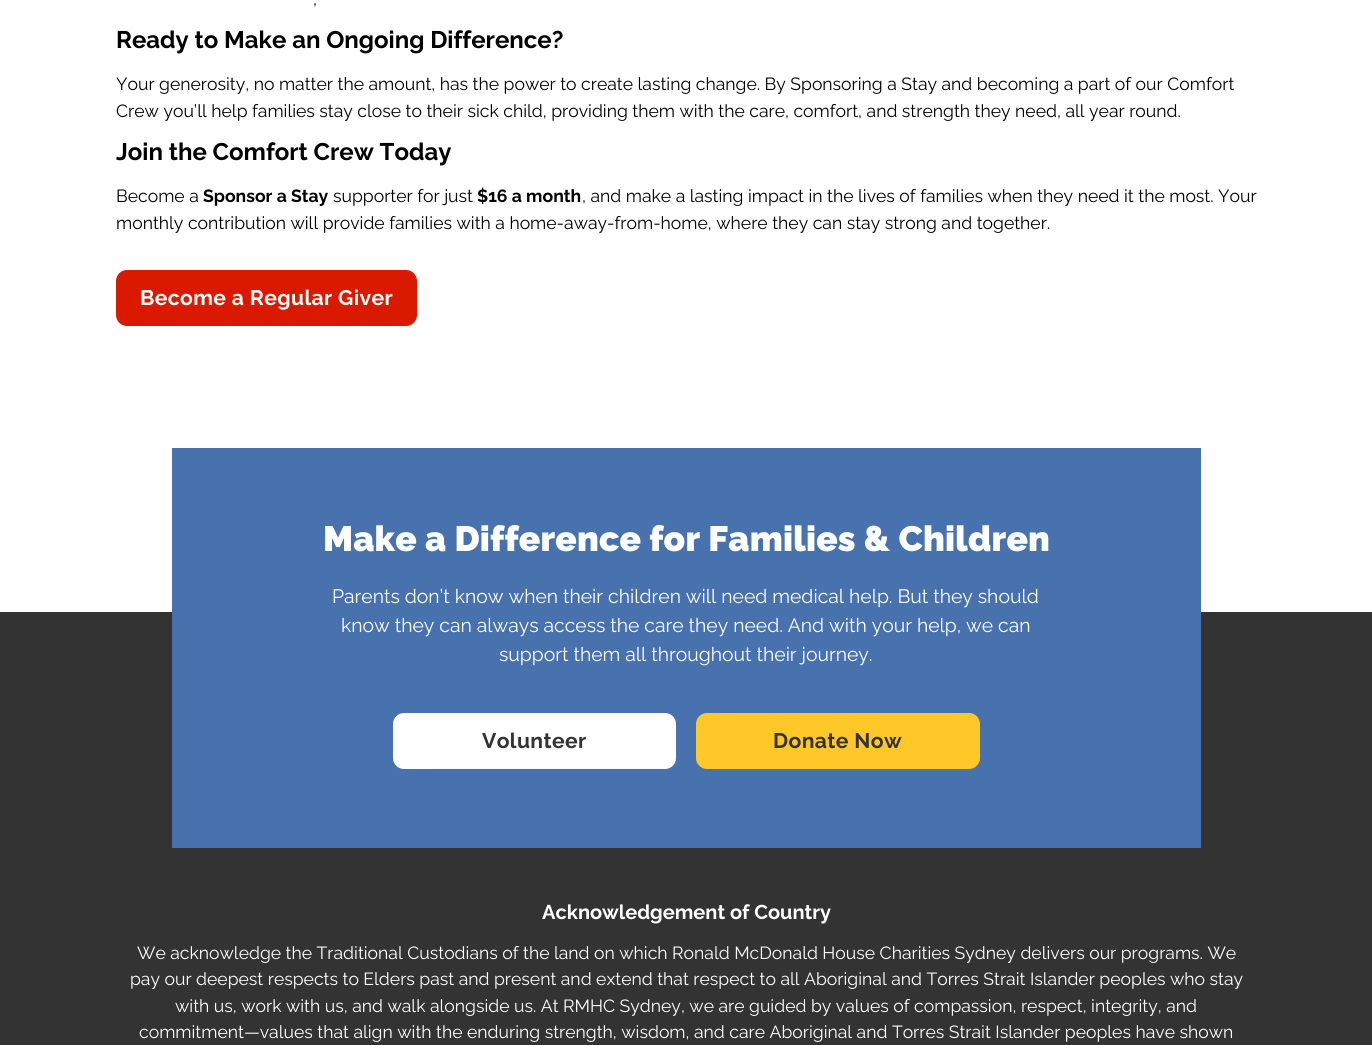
import math
import cairo

surface = cairo.ImageSurface(cairo.FORMAT_RGB24, 1372, 1045)
ctx = cairo.Context(surface)
options = cairo.FontOptions()
options.set_hint_metrics(cairo.HINT_METRICS_OFF)
options.set_hint_style(cairo.HINT_STYLE_NONE)
ctx.set_font_options(options)
ctx.set_miter_limit(4)


def set_color(code):
    ctx.set_source_rgb(*(v / 255 for v in bytes.fromhex(code[-6:])))


def draw_text(x, y, s, family, size, color, bold=False, italic=False):
    ctx.select_font_face(family, cairo.FONT_SLANT_ITALIC if italic else cairo.FONT_SLANT_NORMAL, cairo.FONT_WEIGHT_BOLD if bold else cairo.FONT_WEIGHT_NORMAL)
    ctx.set_font_size(size)
    set_color(color)
    ctx.move_to(x, y)
    ctx.show_text(s)


def draw_spaced(x, y, s, letter, word):
    ctx.move_to(x, y)
    for ch in s:
        ctx.show_text(ch)
        ctx.rel_move_to(letter + word * (ch == ' '), 0)


def fill_rect(x, y, w, h, color):
    set_color(color)
    ctx.rectangle(x, y, w, h)
    ctx.fill()


def rounded_rect(x, y, w, h, r):
    ctx.new_sub_path()
    for i, (u, v) in enumerate([(x + w - r, y + h - r), (x + r, y + h - r), (x + r, y + r), (x + w - r, y + r)]):
        ctx.arc(u, v, r, i * math.pi / 2, (i + 1) * math.pi / 2)
    ctx.close_path()


set_color("#ffffff")
ctx.paint()
draw_text(313, 5, ",", "Raleway", 17.6, "#000000")
draw_text(116, 48, "Ready to Make an Ongoing Difference?", "Raleway", 24, "#000000", bold=True)
draw_text(116, 90, "Your generosity, no matter the amount, has the power to create lasting change. By Sponsoring a Stay and becoming a part of our Comfort", "Raleway", 17.6, "#000000")
draw_text(116, 117, "Crew you’ll help families stay close to their sick child, providing them with the care, comfort, and strength they need, all year round.", "Raleway", 17.6, "#000000")
draw_text(116, 160, "Join the Comfort Crew Today", "Raleway", 24, "#000000", bold=True)
draw_text(116, 202, "Become a", "Raleway", 17.6, "#000000")
draw_text(203, 202, "Sponsor a Stay", "Raleway", 17.6, "#000000", bold=True)
draw_text(333, 202, "supporter for just", "Raleway", 17.6, "#000000")
draw_text(477, 202, "$16 a month", "Raleway", 17.6, "#000000", bold=True)
draw_text(582, 202, ", and make a lasting impact in the lives of families when they need it the most. Your", "Raleway", 17.6, "#000000")
draw_text(116, 229, "monthly contribution will provide families with a home-away-from-home, where they can stay strong and together.", "Raleway", 17.6, "#000000")
set_color("#da1a00")
rounded_rect(116, 270, 301, 56, 11)
ctx.fill()
ctx.select_font_face("Raleway", cairo.FONT_SLANT_NORMAL, cairo.FONT_WEIGHT_BOLD)
ctx.set_font_size(21.1)
set_color("#ffffff")
draw_spaced(140, 305, "Become a Regular Giver", 0.4, 0)
fill_rect(0, 612, 1372, 433, "#333333")
fill_rect(172, 448, 1029, 400, "#4872ae")
ctx.select_font_face("Raleway Black")
ctx.set_font_size(35.2)
set_color("#ffffff")
draw_spaced(323, 551, "Make a Difference for Families & Children", 0.2, 0)
draw_text(332, 603, "Parents don’t know when their children will need medical help. But they should", "Raleway", 19.35, "#ffffff")
draw_text(341, 632, "know they can always access the care they need. And with your help, we can", "Raleway", 19.35, "#ffffff")
draw_text(499, 661, "support them all throughout their journey.", "Raleway", 19.35, "#ffffff")
rounded_rect(393, 713, 283, 56, 11)
ctx.fill()
ctx.select_font_face("Raleway", cairo.FONT_SLANT_NORMAL, cairo.FONT_WEIGHT_BOLD)
ctx.set_font_size(21.1)
set_color("#333333")
draw_spaced(482, 748, "Volunteer", 0.4, 0)
set_color("#ffc829")
rounded_rect(696, 713, 284, 56, 11)
ctx.fill()
set_color("#333333")
draw_spaced(773, 748, "Donate Now", 0.4, 0)
draw_text(542, 919, "Acknowledgement of Country", "Raleway", 20, "#ffffff", bold=True)
draw_text(137, 959, "We acknowledge the Traditional Custodians of the land on which Ronald McDonald House Charities Sydney delivers our programs. We", "Raleway", 17.6, "#ffffff")
draw_text(130, 985, "pay our deepest respects to Elders past and present and extend that respect to all Aboriginal and Torres Strait Islander peoples who stay", "Raleway", 17.6, "#ffffff")
draw_text(175, 1012, "with us, work with us, and walk alongside us. At RMHC Sydney, we are guided by values of compassion, respect, integrity, and", "Raleway", 17.6, "#ffffff")
draw_text(139, 1038, "commitment—values that align with the enduring strength, wisdom, and care Aboriginal and Torres Strait Islander peoples have shown", "Raleway", 17.6, "#ffffff")
surface.write_to_png("output.png")
